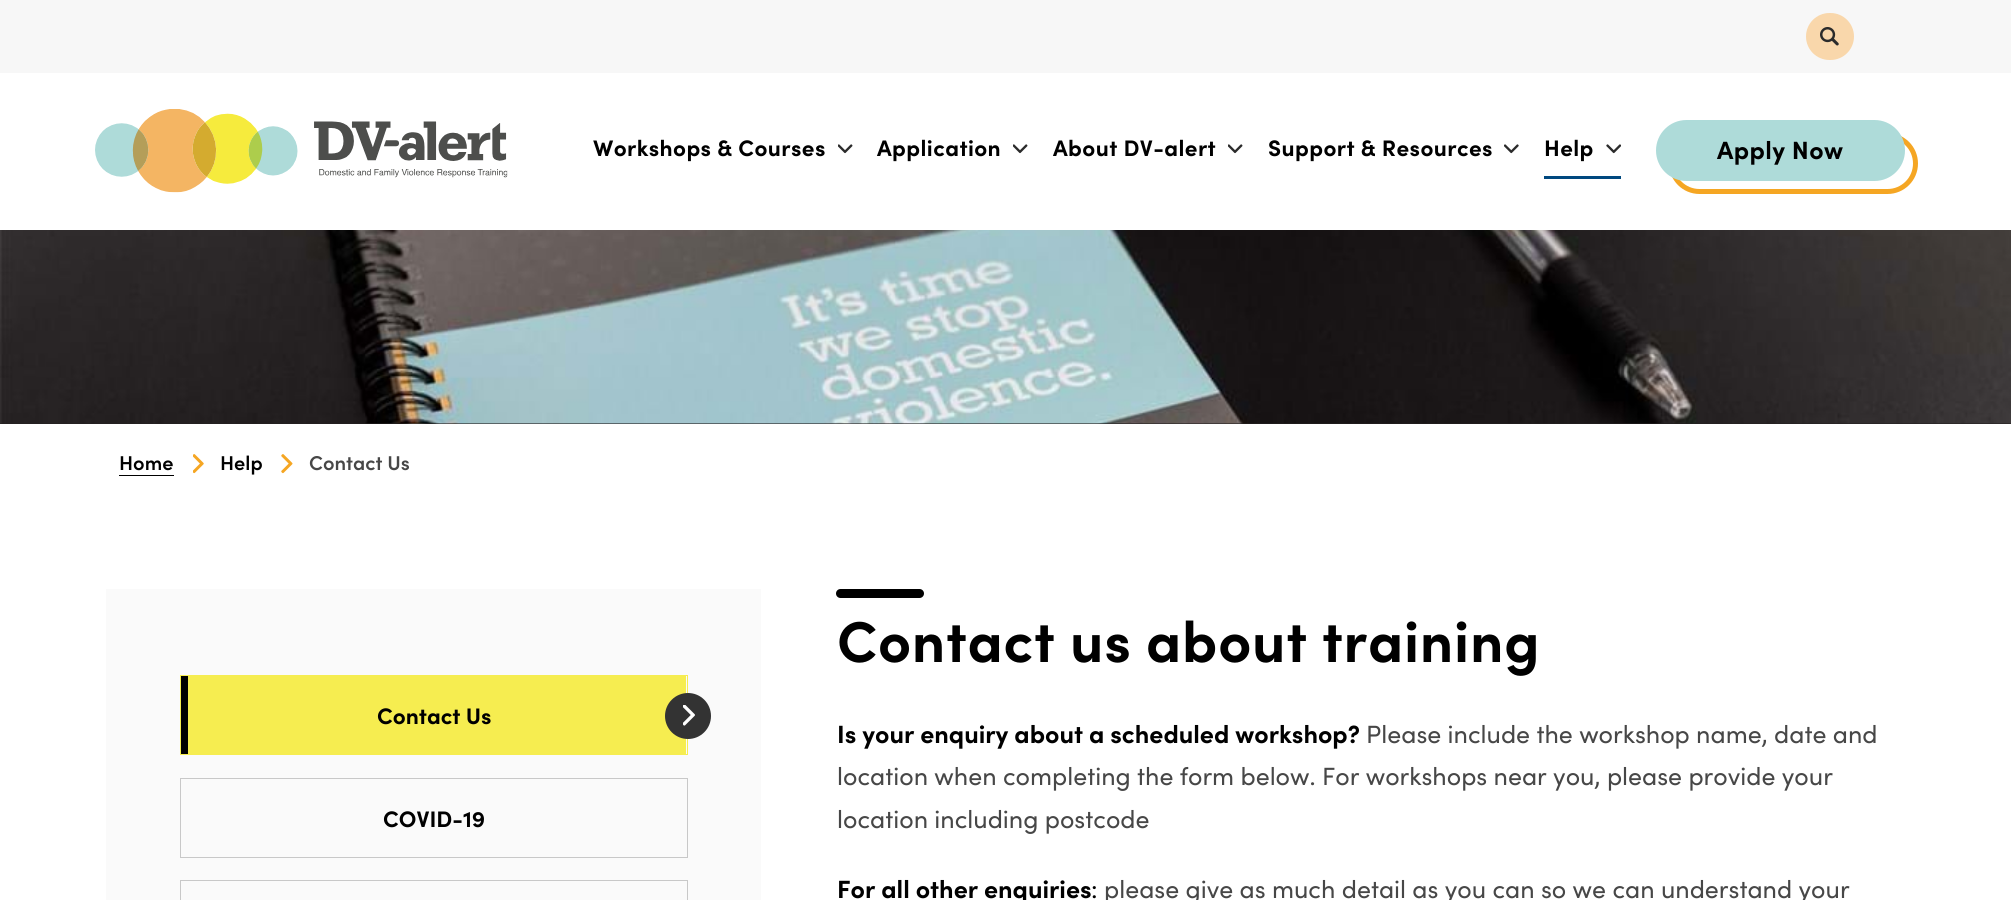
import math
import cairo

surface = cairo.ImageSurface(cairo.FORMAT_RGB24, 2011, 900)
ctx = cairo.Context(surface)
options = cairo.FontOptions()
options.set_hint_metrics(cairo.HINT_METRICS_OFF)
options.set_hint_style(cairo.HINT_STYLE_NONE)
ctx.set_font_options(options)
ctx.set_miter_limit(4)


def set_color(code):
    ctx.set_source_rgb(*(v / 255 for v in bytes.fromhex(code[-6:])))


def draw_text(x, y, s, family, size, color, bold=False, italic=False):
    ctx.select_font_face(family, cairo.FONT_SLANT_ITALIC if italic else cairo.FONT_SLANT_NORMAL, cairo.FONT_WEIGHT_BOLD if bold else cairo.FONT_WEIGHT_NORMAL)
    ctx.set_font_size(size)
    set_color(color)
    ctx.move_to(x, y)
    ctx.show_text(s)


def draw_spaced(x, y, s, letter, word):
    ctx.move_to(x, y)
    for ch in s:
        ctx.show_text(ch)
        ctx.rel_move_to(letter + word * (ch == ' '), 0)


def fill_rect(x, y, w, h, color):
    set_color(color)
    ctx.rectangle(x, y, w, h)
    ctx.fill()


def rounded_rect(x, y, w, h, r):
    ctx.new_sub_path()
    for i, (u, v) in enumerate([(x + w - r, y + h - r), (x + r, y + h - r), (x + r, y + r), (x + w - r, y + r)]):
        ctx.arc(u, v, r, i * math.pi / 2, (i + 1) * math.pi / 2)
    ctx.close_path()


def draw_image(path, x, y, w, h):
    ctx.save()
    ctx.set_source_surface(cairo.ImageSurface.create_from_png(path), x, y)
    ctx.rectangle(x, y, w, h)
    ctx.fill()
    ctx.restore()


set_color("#ffffff")
ctx.paint()
fill_rect(0, 0, 2011, 73, "#f7f7f7")
set_color("#f9d7ab")
rounded_rect(1806, 13, 48, 47, 23.5)
ctx.fill()
draw_image("assets/img1.png", 1820, 27, 19, 19)
draw_image("assets/img2.png", 95, 109, 413, 84)
ctx.select_font_face("Sofia", cairo.FONT_SLANT_NORMAL, cairo.FONT_WEIGHT_BOLD)
ctx.set_font_size(22.5)
set_color("#000000")
draw_spaced(593, 156, "Workshops & Courses", 0.4, 0)
draw_image("assets/img3.png", 838, 144, 15, 10)
draw_spaced(877, 156, "Application", 0.4, 0)
draw_image("assets/img3.png", 1013, 144, 15, 10)
draw_spaced(1053, 156, "About DV-alert", 0.4, 0)
draw_image("assets/img3.png", 1228, 144, 15, 10)
draw_spaced(1268, 156, "Support & Resources", 0.4, 0)
draw_image("assets/img4.png", 1504, 144, 15, 10)
draw_spaced(1544, 156, "Help", 0.4, 0)
draw_image("assets/img5.png", 1606, 144, 15, 10)
fill_rect(1544, 176, 77, 3, "#00487f")
rounded_rect(1671.5, 135.5, 244, 56, 28)
set_color("#f5a623")
ctx.set_line_width(5)
ctx.stroke()
set_color("#aedbd9")
rounded_rect(1658.5, 122.5, 244, 56, 28)
ctx.fill_preserve()
ctx.stroke()
ctx.set_font_size(25)
set_color("#000000")
draw_spaced(1717, 159, "Apply Now", 0.4, 0)
fill_rect(0, 423, 2011, 1, "#252121")
draw_image("assets/img6.png", 0, 230, 2011, 194)
draw_text(119, 470, "Home", "Sofia SemiBold", 20, "#000000")
fill_rect(119, 475, 55, 1, "#000000")
draw_image("assets/img7.png", 193, 454, 11, 20)
draw_text(220, 470, "Help", "Sofia SemiBold", 20, "#000000")
draw_image("assets/img8.png", 281, 454, 12, 20)
draw_text(309, 470, "Contact Us", "Sofia SemiBold", 20, "#474747")
fill_rect(106, 589, 655, 311, "#fafafa")
ctx.rectangle(180.5, 675.5, 507, 79)
set_color("#f6ed50")
ctx.set_line_width(1)
ctx.stroke()
fill_rect(188, 676, 498, 78, "#f6ed50")
fill_rect(181, 676, 7, 78, "#000000")
draw_text(377, 724, "Contact Us", "Sofia", 22.5, "#000000", bold=True)
set_color("#333333")
ctx.new_path()
ctx.arc(688, 716, 23, 0, 2 * math.pi)
ctx.fill()
draw_image("assets/img9.png", 683, 705, 12, 21)
ctx.rectangle(180.5, 778.5, 507, 79)
set_color("#c8c8c8")
ctx.stroke()
draw_text(383, 827, "COVID-19", "Sofia", 22.5, "#000000", bold=True)
ctx.rectangle(180.5, 880.5, 507, 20)
set_color("#c8c8c8")
ctx.stroke()
set_color("#000000")
rounded_rect(836, 589, 88, 9, 4.5)
ctx.fill()
ctx.set_font_size(57.5)
draw_spaced(837, 662, "Contact us about training", 0.75, 0)
draw_text(837, 743, "Is your enquiry about a scheduled workshop?", "Sofia", 25, "#000000", bold=True)
draw_text(1366, 743, "Please include the workshop name, date and", "Sofia", 25, "#474747")
draw_text(837, 785, "location when completing the form below. For workshops near you, please provide your", "Sofia", 25, "#474747")
draw_text(837, 828, "location including postcode", "Sofia", 25, "#474747")
draw_text(837, 898, "For all other enquiries", "Sofia", 25, "#000000", bold=True)
draw_text(1091, 898, ":", "Sofia", 25, "#000000")
draw_text(1104, 898, "please give as much detail as you can so we can understand your", "Sofia", 25, "#474747")
surface.write_to_png("output.png")
